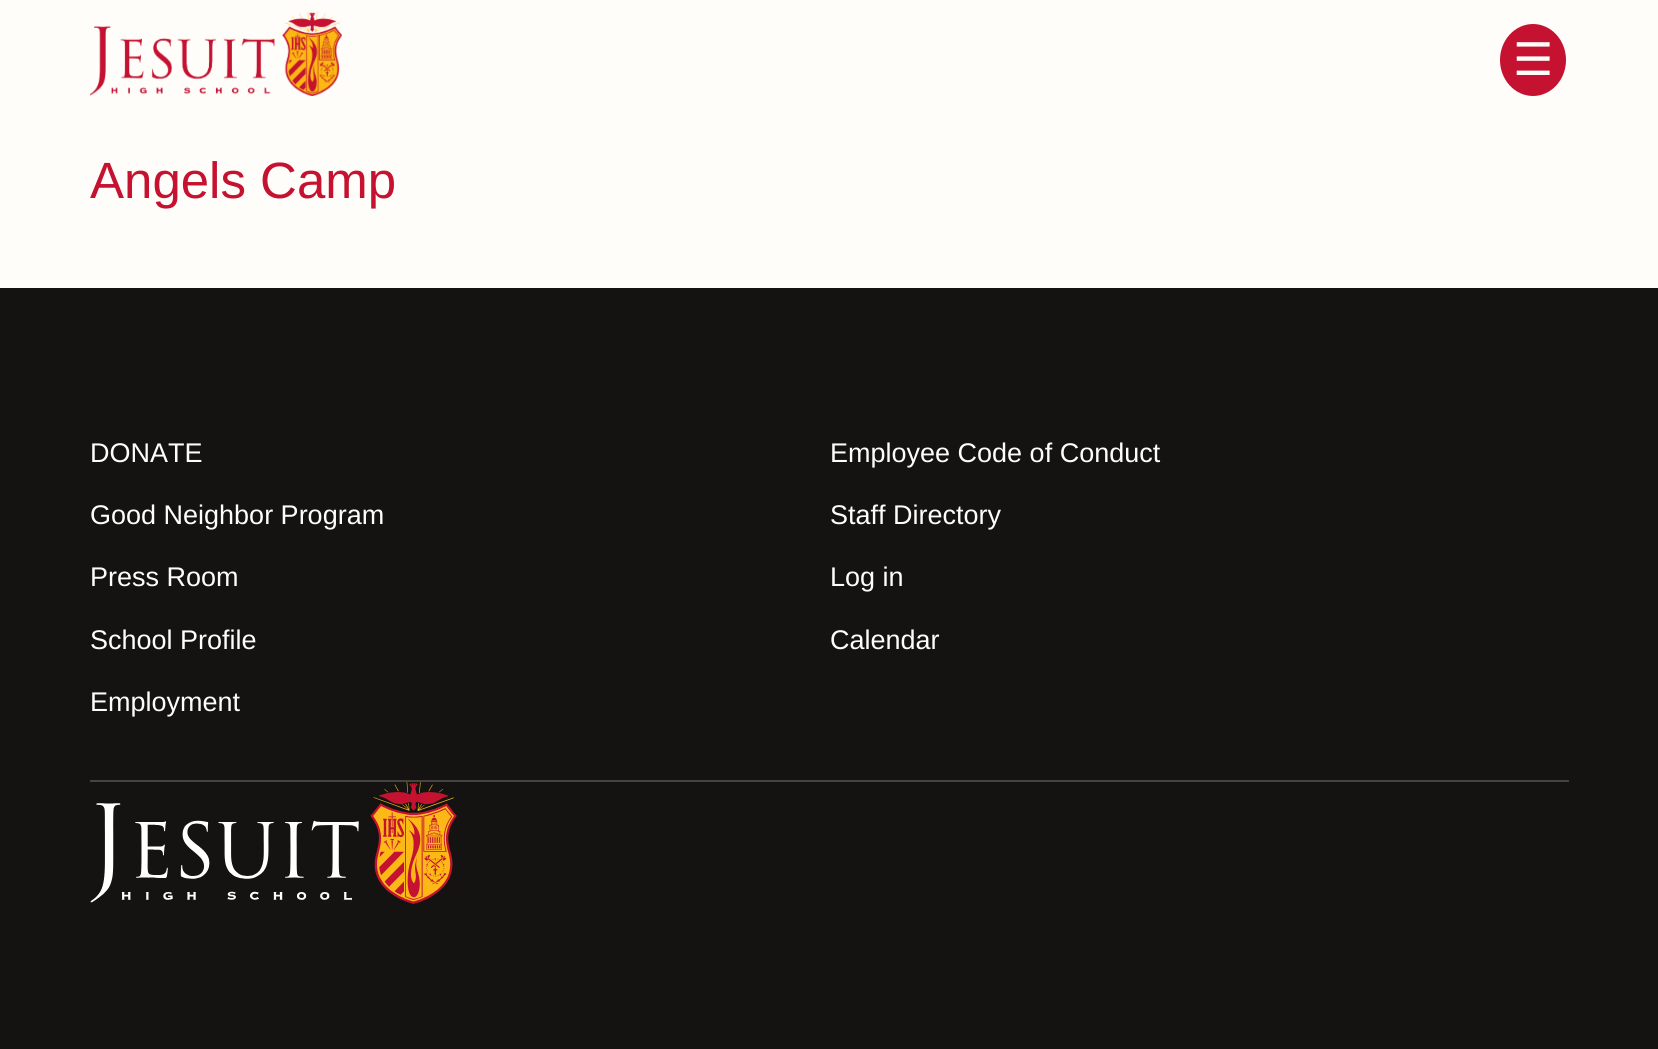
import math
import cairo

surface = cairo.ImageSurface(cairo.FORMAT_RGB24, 1658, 1049)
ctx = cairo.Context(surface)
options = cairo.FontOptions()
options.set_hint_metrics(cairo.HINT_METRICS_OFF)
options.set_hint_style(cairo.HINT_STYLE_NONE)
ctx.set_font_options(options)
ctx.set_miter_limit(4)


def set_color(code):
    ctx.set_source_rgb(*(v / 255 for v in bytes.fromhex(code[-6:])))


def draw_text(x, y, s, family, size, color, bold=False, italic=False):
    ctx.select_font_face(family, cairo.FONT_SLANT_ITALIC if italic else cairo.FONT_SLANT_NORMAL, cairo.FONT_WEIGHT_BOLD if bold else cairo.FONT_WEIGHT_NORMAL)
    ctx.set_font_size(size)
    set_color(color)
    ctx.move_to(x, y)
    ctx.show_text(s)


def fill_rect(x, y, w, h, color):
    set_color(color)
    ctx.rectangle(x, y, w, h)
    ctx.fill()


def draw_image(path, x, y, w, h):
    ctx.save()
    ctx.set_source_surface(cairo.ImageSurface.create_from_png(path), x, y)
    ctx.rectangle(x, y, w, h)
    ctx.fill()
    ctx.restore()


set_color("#fffdfa")
ctx.paint()
draw_image("assets/img1.png", 90, 12, 252, 84)
set_color("#c41230")
ctx.new_path()
ctx.move_to(1533, 24)
ctx.curve_to(1551, 24, 1566, 40, 1566, 60)
ctx.curve_to(1566, 80, 1551, 96, 1533, 96)
ctx.curve_to(1515, 96, 1500, 80, 1500, 60)
ctx.curve_to(1500, 40, 1515, 24, 1533, 24)
ctx.close_path()
ctx.fill()
draw_text(1513, 75, "☰", "DejaVu Sans", 45, "#fffdfa")
draw_text(90, 198, "Angels Camp", "Liberation Sans", 51, "#c41230")
fill_rect(0, 288, 1658, 761, "#141311")
fill_rect(90, 780, 1479, 2, "#454441")
draw_text(90, 462, "DONATE", "Liberation Sans", 27, "#fffdfa")
draw_text(90, 524, "Good Neighbor Program", "Liberation Sans", 27, "#fffdfa")
draw_text(90, 586, "Press Room", "Liberation Sans", 27, "#fffdfa")
draw_text(90, 649, "School Profile", "Liberation Sans", 27, "#fffdfa")
draw_text(90, 711, "Employment", "Liberation Sans", 27, "#fffdfa")
draw_text(830, 462, "Employee Code of Conduct", "Liberation Sans", 27, "#fffdfa")
draw_text(830, 524, "Staff Directory", "Liberation Sans", 27, "#fffdfa")
draw_text(830, 586, "Log in", "Liberation Sans", 27, "#fffdfa")
draw_text(830, 649, "Calendar", "Liberation Sans", 27, "#fffdfa")
draw_image("assets/img2.png", 90, 782, 367, 122)
surface.write_to_png("output.png")
